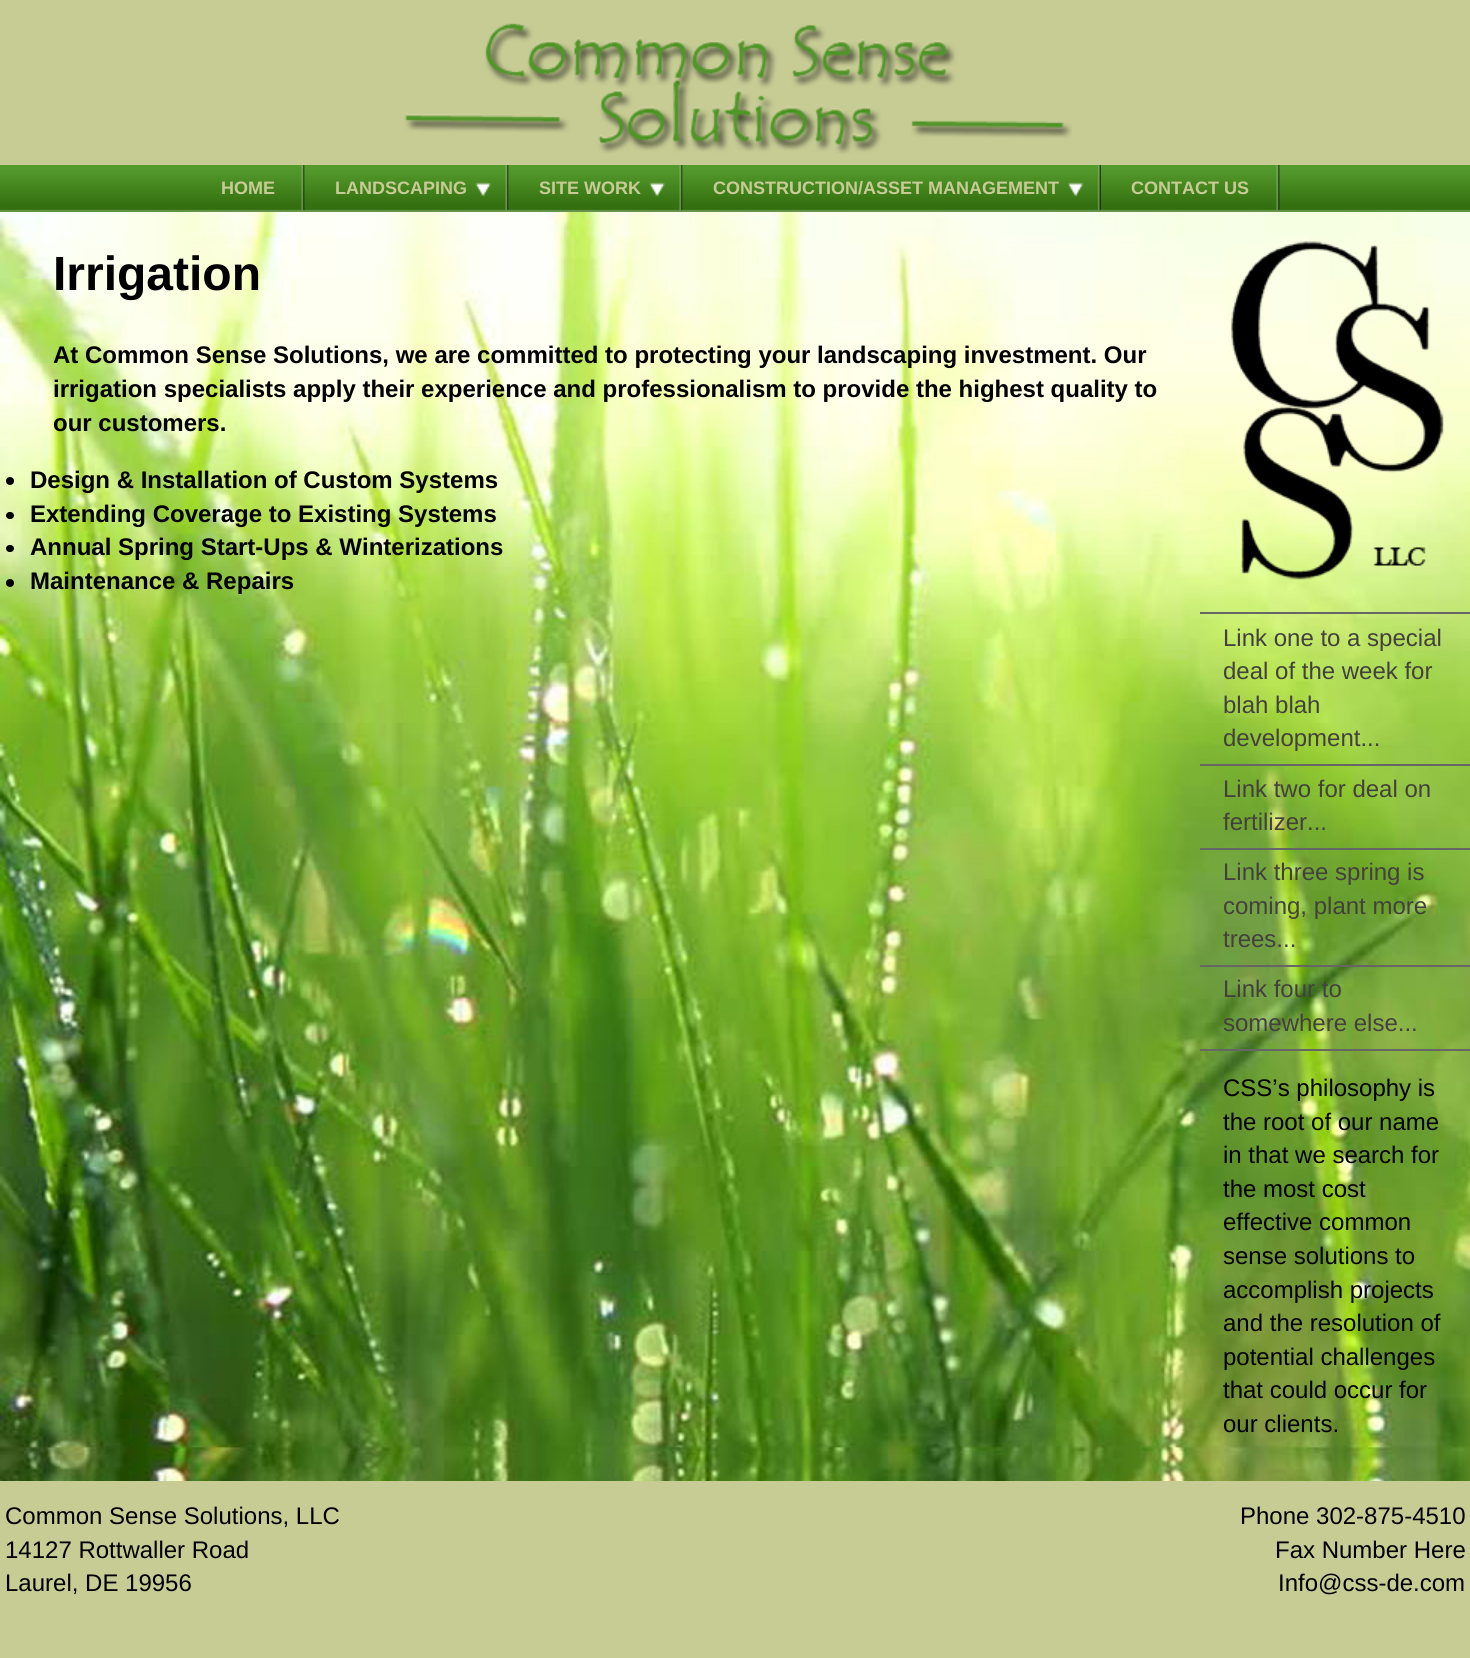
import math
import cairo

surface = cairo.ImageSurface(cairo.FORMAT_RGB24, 1470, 1658)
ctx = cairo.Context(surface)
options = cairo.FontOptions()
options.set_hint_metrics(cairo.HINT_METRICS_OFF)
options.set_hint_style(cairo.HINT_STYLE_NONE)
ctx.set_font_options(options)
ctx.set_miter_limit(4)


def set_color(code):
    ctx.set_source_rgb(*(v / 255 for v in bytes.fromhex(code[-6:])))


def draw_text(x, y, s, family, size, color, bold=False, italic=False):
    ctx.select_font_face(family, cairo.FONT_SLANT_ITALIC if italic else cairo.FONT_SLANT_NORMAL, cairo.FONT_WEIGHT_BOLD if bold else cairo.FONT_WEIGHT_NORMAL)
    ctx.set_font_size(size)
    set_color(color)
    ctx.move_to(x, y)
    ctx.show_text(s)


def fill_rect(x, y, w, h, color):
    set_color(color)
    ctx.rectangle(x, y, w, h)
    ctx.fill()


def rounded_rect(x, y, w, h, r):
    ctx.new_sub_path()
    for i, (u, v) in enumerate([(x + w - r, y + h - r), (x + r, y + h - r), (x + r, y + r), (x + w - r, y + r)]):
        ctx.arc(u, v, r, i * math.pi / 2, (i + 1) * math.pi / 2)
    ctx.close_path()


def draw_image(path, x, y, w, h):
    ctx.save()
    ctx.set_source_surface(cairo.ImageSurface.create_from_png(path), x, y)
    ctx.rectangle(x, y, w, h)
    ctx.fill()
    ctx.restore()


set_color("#c7cc94")
ctx.paint()
draw_image("assets/img1.png", 404, 23, 668, 131)
fill_rect(0, 211, 1470, 1, "#509629")
draw_image("assets/img2.png", 0, 165, 1470, 47)
draw_image("assets/img3.png", 191, 165, 114, 47)
draw_text(221, 194, "HOME", "Liberation Sans", 18, "#c7cc95", bold=True)
draw_image("assets/img4.png", 304, 165, 205, 47)
draw_text(335, 194, "LANDSCAPING", "Liberation Sans", 18, "#c7cc95", bold=True)
draw_image("assets/img5.png", 508, 165, 175, 47)
draw_text(539, 194, "SITE WORK", "Liberation Sans", 18, "#c7cc95", bold=True)
draw_image("assets/img6.png", 682, 165, 419, 47)
draw_text(713, 194, "CONSTRUCTION/ASSET MANAGEMENT", "Liberation Sans", 18, "#c7cc95", bold=True)
draw_image("assets/img7.png", 1101, 165, 179, 47)
draw_text(1131, 194, "CONTACT US", "Liberation Sans", 18, "#c7cc95", bold=True)
draw_image("assets/img8.png", 0, 212, 1470, 1269)
draw_text(53, 290, "Irrigation", "Liberation Sans", 48, "#000000", bold=True)
draw_text(53, 363, "At Common Sense Solutions, we are committed to protecting your landscaping investment. Our", "Liberation Sans", 24, "#000000", bold=True)
draw_text(53, 397, "irrigation specialists apply their experience and professionalism to provide the highest quality to", "Liberation Sans", 24, "#000000", bold=True)
draw_text(53, 431, "our customers.", "Liberation Sans", 24, "#000000", bold=True)
ctx.new_path()
ctx.arc(10, 481, 4, 0, 2 * math.pi)
ctx.fill()
draw_text(30, 488, "Design & Installation of Custom Systems", "Liberation Sans", 24, "#000000", bold=True)
rounded_rect(6, 512, 8, 7, 3.5)
ctx.fill()
draw_text(30, 522, "Extending Coverage to Existing Systems", "Liberation Sans", 24, "#000000", bold=True)
rounded_rect(6, 545, 8, 7, 3.5)
ctx.fill()
draw_text(30, 555, "Annual Spring Start-Ups & Winterizations", "Liberation Sans", 24, "#000000", bold=True)
ctx.new_path()
ctx.arc(10, 583, 4, 0, 2 * math.pi)
ctx.fill()
draw_text(30, 589, "Maintenance & Repairs", "Liberation Sans", 24, "#000000", bold=True)
draw_image("assets/img9.png", 1231, 241, 213, 339)
fill_rect(1200, 612, 270, 2, "#666666")
fill_rect(1200, 764, 270, 2, "#666666")
draw_text(1223, 646, "Link one to a special", "Liberation Sans", 24, "#42413c")
draw_text(1223, 679, "deal of the week for", "Liberation Sans", 24, "#42413c")
draw_text(1223, 713, "blah blah", "Liberation Sans", 24, "#42413c")
draw_text(1223, 746, "development...", "Liberation Sans", 24, "#42413c")
fill_rect(1200, 848, 270, 2, "#666666")
draw_text(1223, 797, "Link two for deal on", "Liberation Sans", 24, "#42413c")
draw_text(1223, 830, "fertilizer...", "Liberation Sans", 24, "#42413c")
fill_rect(1200, 965, 270, 2, "#666666")
draw_text(1223, 880, "Link three spring is", "Liberation Sans", 24, "#42413c")
draw_text(1223, 914, "coming, plant more", "Liberation Sans", 24, "#42413c")
draw_text(1223, 947, "trees...", "Liberation Sans", 24, "#42413c")
fill_rect(1200, 1049, 270, 2, "#666666")
draw_text(1223, 997, "Link four to", "Liberation Sans", 24, "#42413c")
draw_text(1223, 1031, "somewhere else...", "Liberation Sans", 24, "#42413c")
draw_text(1223, 1096, "CSS’s philosophy is", "Liberation Sans", 24, "#000000")
draw_text(1223, 1130, "the root of our name", "Liberation Sans", 24, "#000000")
draw_text(1223, 1163, "in that we search for", "Liberation Sans", 24, "#000000")
draw_text(1223, 1197, "the most cost", "Liberation Sans", 24, "#000000")
draw_text(1223, 1230, "effective common", "Liberation Sans", 24, "#000000")
draw_text(1223, 1264, "sense solutions to", "Liberation Sans", 24, "#000000")
draw_text(1223, 1298, "accomplish projects", "Liberation Sans", 24, "#000000")
draw_text(1223, 1331, "and the resolution of", "Liberation Sans", 24, "#000000")
draw_text(1223, 1365, "potential challenges", "Liberation Sans", 24, "#000000")
draw_text(1223, 1398, "that could occur for", "Liberation Sans", 24, "#000000")
draw_text(1223, 1432, "our clients.", "Liberation Sans", 24, "#000000")
draw_text(5, 1524, "Common Sense Solutions, LLC", "Liberation Sans", 24, "#000000")
draw_text(5, 1558, "14127 Rottwaller Road", "Liberation Sans", 24, "#000000")
draw_text(5, 1591, "Laurel, DE 19956", "Liberation Sans", 24, "#000000")
draw_text(1240, 1524, "Phone 302-875-4510", "Liberation Sans", 24, "#000000")
draw_text(1275, 1558, "Fax Number Here", "Liberation Sans", 24, "#000000")
draw_text(1278, 1591, "Info@css-de.com", "Liberation Sans", 24, "#000000")
surface.write_to_png("output.png")
